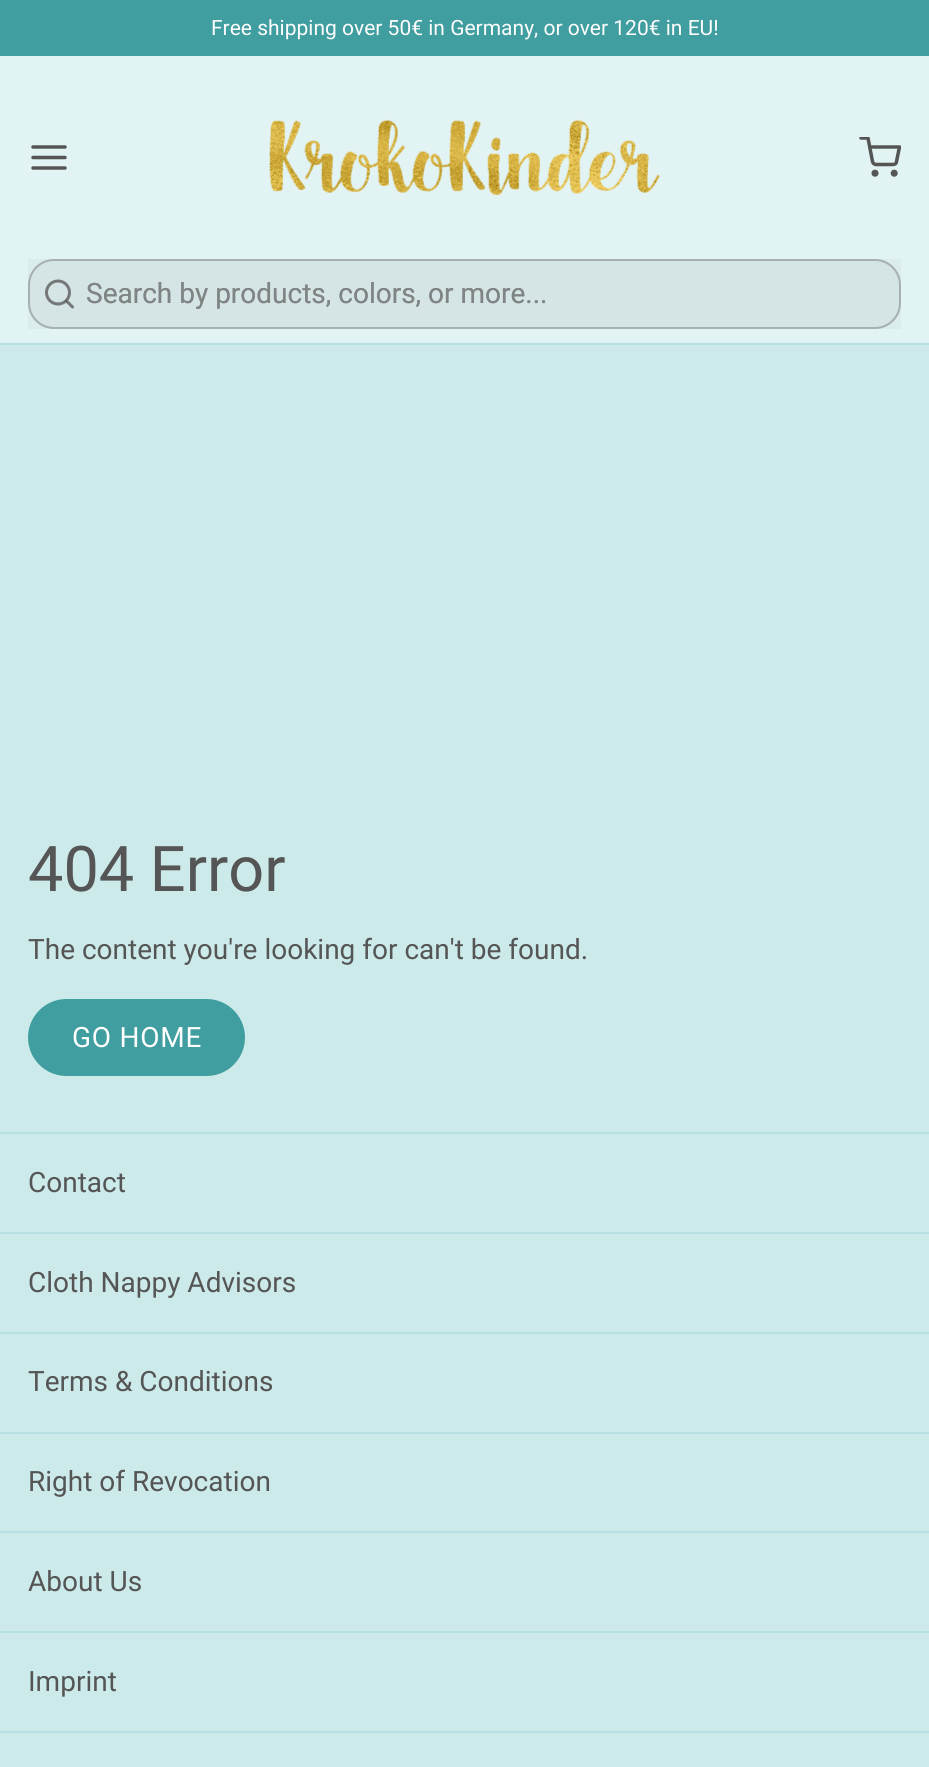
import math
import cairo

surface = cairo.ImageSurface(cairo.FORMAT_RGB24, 929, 1767)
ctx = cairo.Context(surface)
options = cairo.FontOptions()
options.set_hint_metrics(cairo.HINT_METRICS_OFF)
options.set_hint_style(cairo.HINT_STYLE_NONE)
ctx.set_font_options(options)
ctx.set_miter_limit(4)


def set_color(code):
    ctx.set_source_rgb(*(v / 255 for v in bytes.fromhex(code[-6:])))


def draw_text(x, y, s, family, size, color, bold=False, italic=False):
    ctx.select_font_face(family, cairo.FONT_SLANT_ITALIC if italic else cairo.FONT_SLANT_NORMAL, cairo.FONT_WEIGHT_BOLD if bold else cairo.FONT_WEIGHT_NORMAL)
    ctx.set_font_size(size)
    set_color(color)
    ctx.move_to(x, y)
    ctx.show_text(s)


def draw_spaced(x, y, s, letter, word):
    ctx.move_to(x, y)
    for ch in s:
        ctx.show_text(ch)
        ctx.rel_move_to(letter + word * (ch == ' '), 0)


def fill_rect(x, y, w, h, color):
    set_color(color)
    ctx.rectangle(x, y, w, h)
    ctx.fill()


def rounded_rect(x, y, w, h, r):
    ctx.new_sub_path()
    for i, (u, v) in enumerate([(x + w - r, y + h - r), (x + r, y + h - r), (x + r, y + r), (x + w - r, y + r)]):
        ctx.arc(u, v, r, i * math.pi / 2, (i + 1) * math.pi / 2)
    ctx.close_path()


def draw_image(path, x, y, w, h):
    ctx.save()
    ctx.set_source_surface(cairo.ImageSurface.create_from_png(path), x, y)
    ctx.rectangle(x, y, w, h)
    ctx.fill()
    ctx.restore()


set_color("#e2f3f3")
ctx.paint()
fill_rect(0, 0, 929, 56, "#409da0")
draw_text(211, 35, "Free shipping over 50€ in Germany, or over 120€ in EU!", "Roboto", 21, "#fdfdfd")
fill_rect(0, 343, 929, 2, "#b6e0e2")
ctx.new_path()
ctx.move_to(33, 157.5)
ctx.line_to(65, 157.5)
ctx.move_to(33, 147)
ctx.line_to(65, 147)
ctx.move_to(33, 168)
ctx.line_to(65, 168)
set_color("#555555")
ctx.set_line_width(3.5)
ctx.set_line_cap(cairo.LINE_CAP_ROUND)
ctx.set_line_join(cairo.LINE_JOIN_ROUND)
ctx.stroke()
draw_image("assets/img1.png", 269, 119, 391, 77)
ctx.arc(875, 173.2, 1.8, 0, 2 * math.pi)
ctx.set_line_cap(cairo.LINE_CAP_BUTT)
ctx.set_line_join(cairo.LINE_JOIN_MITER)
ctx.stroke()
ctx.arc(894.2, 173.2, 1.8, 0, 2 * math.pi)
ctx.stroke()
ctx.save()
ctx.rectangle(859, 137, 42, 42)
ctx.clip()
ctx.new_path()
ctx.move_to(861, 138)
ctx.line_to(868, 138)
ctx.line_to(872.5, 161.5)
ctx.curve_to(873, 163.5, 874.5, 164.5, 876, 164.5)
ctx.line_to(893, 164.5)
ctx.curve_to(895, 164.5, 896.5, 163.5, 896.5, 161.5)
ctx.line_to(899.5, 147)
ctx.line_to(870, 147)
ctx.set_line_cap(cairo.LINE_CAP_ROUND)
ctx.set_line_join(cairo.LINE_JOIN_ROUND)
ctx.stroke()
ctx.restore()
set_color("#dbebeb")
rounded_rect(28, 259, 873, 70, 26)
ctx.fill()
rounded_rect(29, 260, 871, 68, 25)
ctx.set_source_rgba(0.333, 0.333, 0.333, 0.2)
ctx.set_line_width(2)
ctx.stroke()
ctx.arc(58, 292.5, 11.5, 0, 2 * math.pi)
set_color("#98a0a0")
ctx.set_line_width(2.9)
ctx.stroke()
ctx.new_path()
ctx.move_to(72.5, 307)
ctx.line_to(66.5, 301)
ctx.set_line_cap(cairo.LINE_CAP_ROUND)
ctx.set_line_join(cairo.LINE_JOIN_ROUND)
ctx.stroke()
draw_text(86, 303, "Search by products, colors, or more...", "Roboto", 28, "#98a0a0")
ctx.set_source_rgba(0.333, 0.333, 0.333, 0.05)
ctx.rectangle(28, 259, 873, 70)
ctx.fill()
rounded_rect(29, 260, 871, 68, 25)
ctx.set_source_rgba(0.333, 0.333, 0.333, 0.2)
ctx.set_line_width(2)
ctx.set_line_cap(cairo.LINE_CAP_BUTT)
ctx.set_line_join(cairo.LINE_JOIN_MITER)
ctx.stroke()
ctx.arc(58, 292.5, 11.5, 0, 2 * math.pi)
ctx.set_source_rgba(0.333, 0.333, 0.333, 0.5)
ctx.set_line_width(2.9)
ctx.stroke()
ctx.new_path()
ctx.move_to(72.5, 307)
ctx.line_to(66.5, 301)
ctx.set_line_cap(cairo.LINE_CAP_ROUND)
ctx.set_line_join(cairo.LINE_JOIN_ROUND)
ctx.stroke()
draw_text(86, 303, "Search by products, colors, or more...", "Roboto", 28, "#7f8484")
fill_rect(0, 345, 929, 787, "#cceaea")
draw_text(28, 891, "404 Error", "Roboto", 63, "#555555")
draw_text(28, 959, "The content you're looking for can't be found.", "Roboto", 28, "#555555")
set_color("#409da0")
rounded_rect(29, 1000, 215, 75, 37.5)
ctx.fill_preserve()
ctx.set_line_width(2)
ctx.set_line_cap(cairo.LINE_CAP_BUTT)
ctx.set_line_join(cairo.LINE_JOIN_MITER)
ctx.stroke()
set_color("#fdfdfd")
draw_spaced(72, 1047, "GO HOME", 0.75, 0)
fill_rect(0, 1134, 929, 397, "#cceaea")
fill_rect(0, 1132, 929, 2, "#b6e0e2")
draw_text(28, 1192, "Contact", "Roboto", 28, "#555555")
fill_rect(0, 1232, 929, 2, "#b6e0e2")
draw_text(28, 1292, "Cloth Nappy Advisors", "Roboto", 28, "#555555")
fill_rect(0, 1332, 929, 2, "#b6e0e2")
draw_text(28, 1391, "Terms & Conditions", "Roboto", 28, "#555555")
fill_rect(0, 1432, 929, 2, "#b6e0e2")
draw_text(28, 1491, "Right of Revocation", "Roboto", 28, "#555555")
fill_rect(0, 1533, 929, 234, "#cceaea")
fill_rect(0, 1531, 929, 2, "#b6e0e2")
draw_text(28, 1591, "About Us", "Roboto", 28, "#555555")
fill_rect(0, 1631, 929, 2, "#b6e0e2")
draw_text(28, 1691, "Imprint", "Roboto", 28, "#555555")
fill_rect(0, 1731, 929, 2, "#b6e0e2")
surface.write_to_png("output.png")
